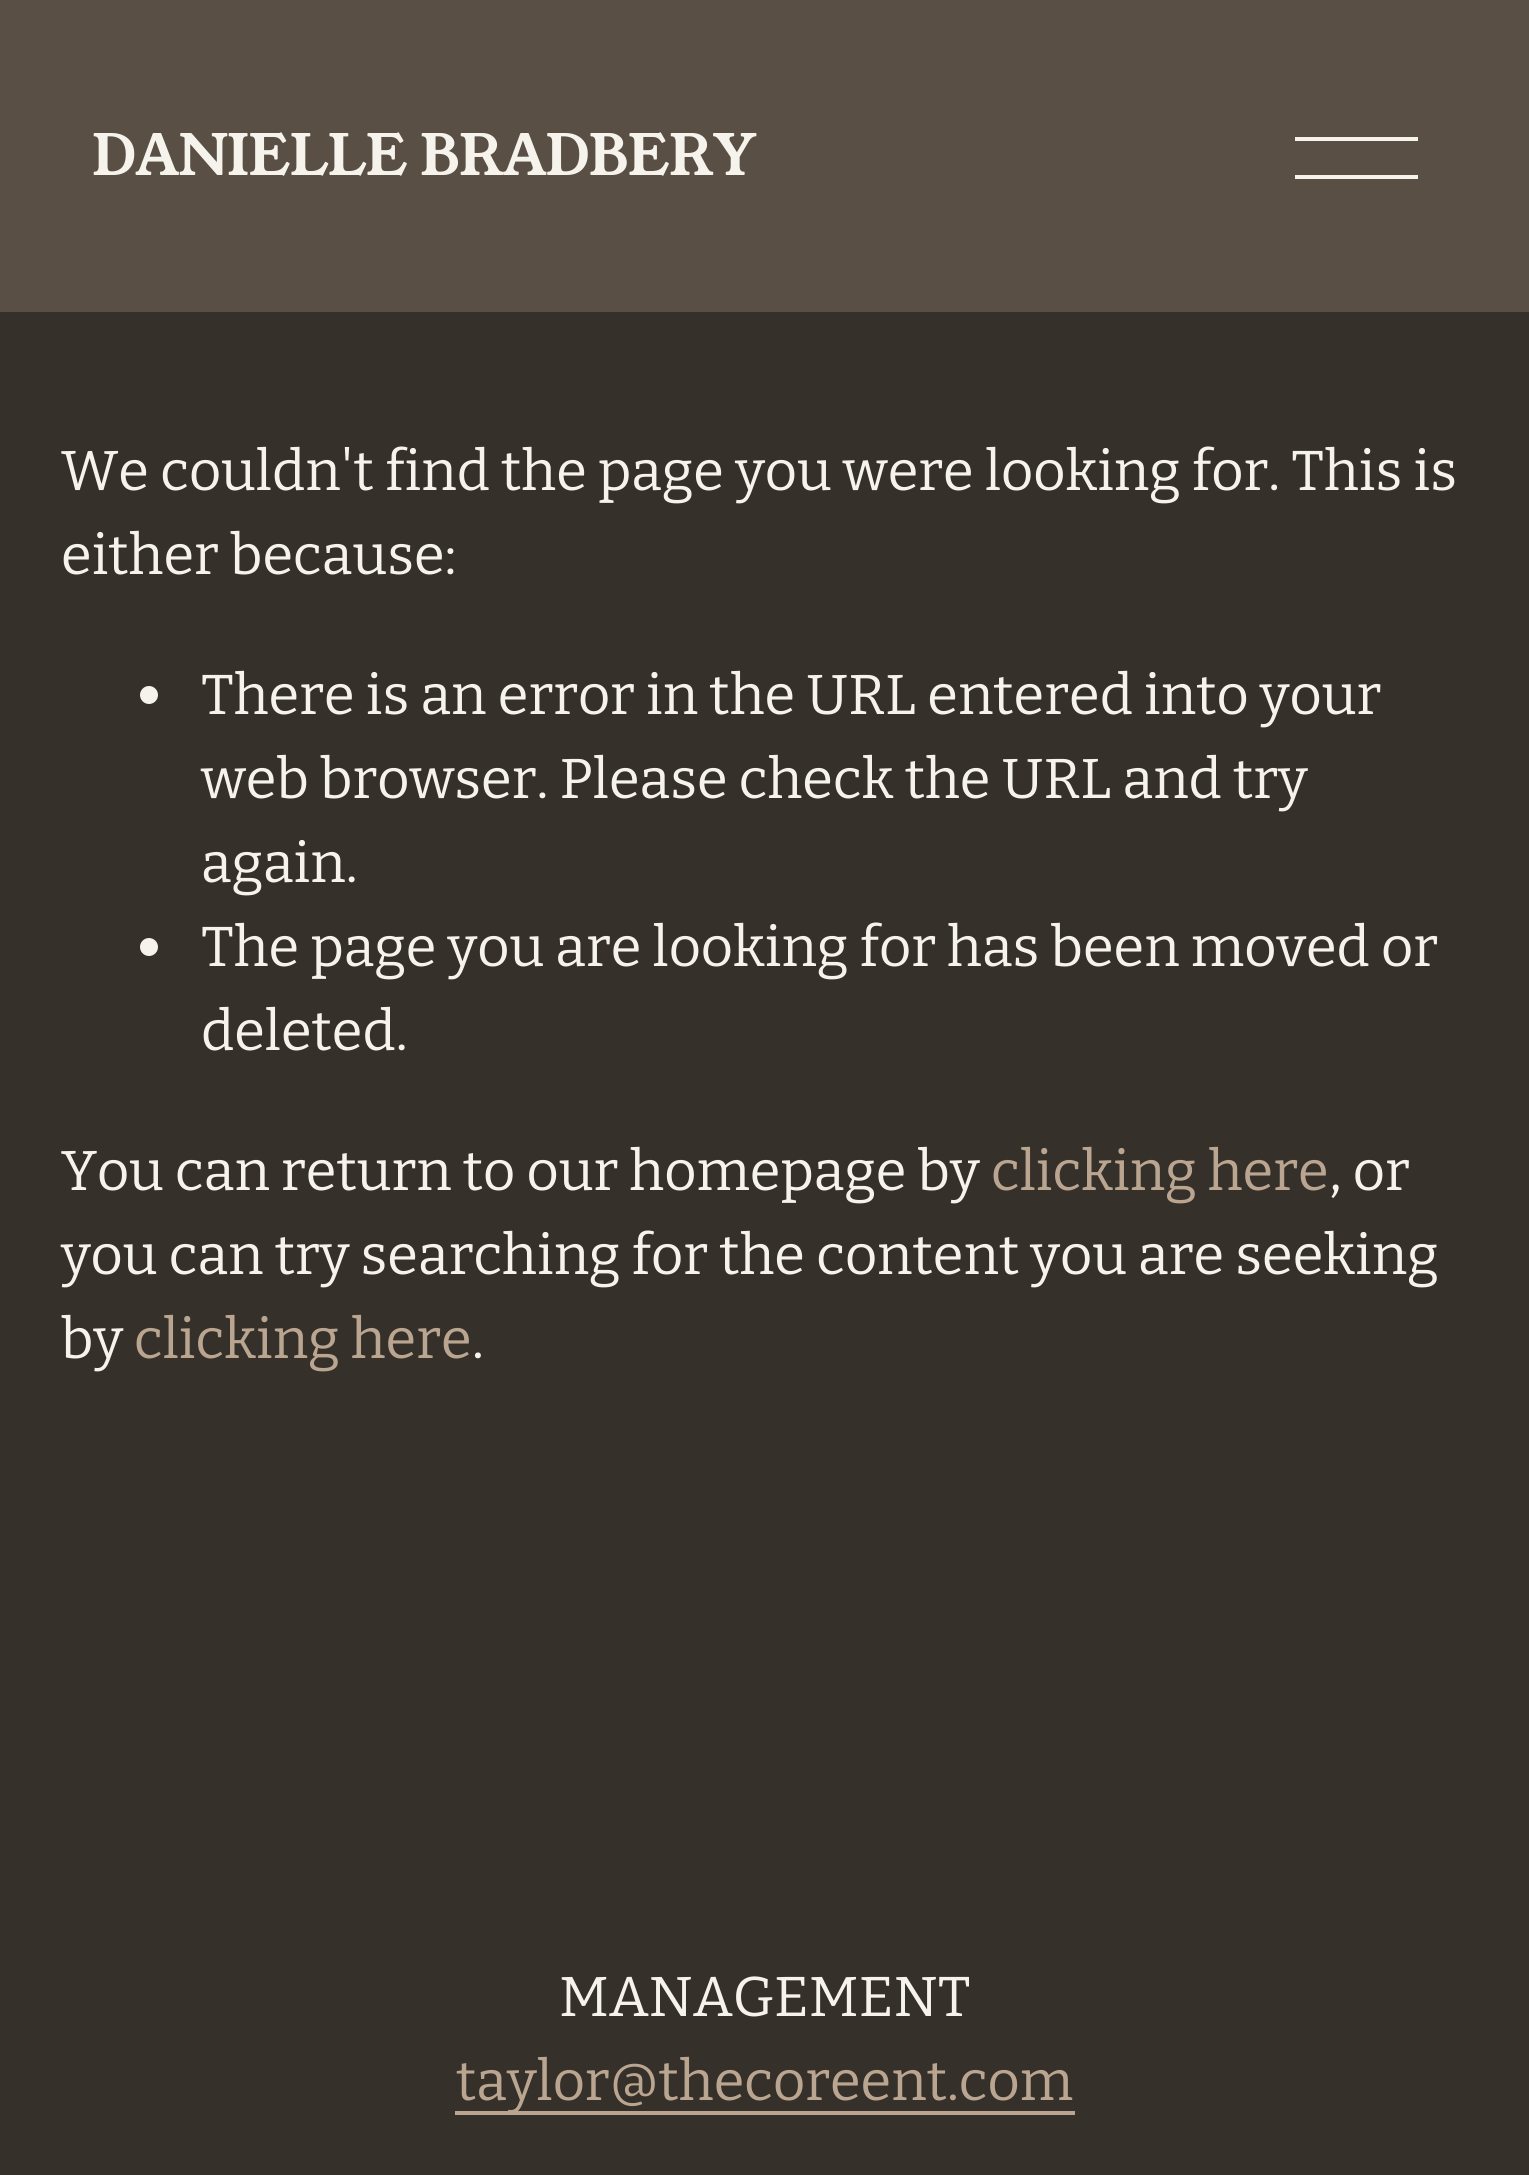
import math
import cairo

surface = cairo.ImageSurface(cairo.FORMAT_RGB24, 1529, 2175)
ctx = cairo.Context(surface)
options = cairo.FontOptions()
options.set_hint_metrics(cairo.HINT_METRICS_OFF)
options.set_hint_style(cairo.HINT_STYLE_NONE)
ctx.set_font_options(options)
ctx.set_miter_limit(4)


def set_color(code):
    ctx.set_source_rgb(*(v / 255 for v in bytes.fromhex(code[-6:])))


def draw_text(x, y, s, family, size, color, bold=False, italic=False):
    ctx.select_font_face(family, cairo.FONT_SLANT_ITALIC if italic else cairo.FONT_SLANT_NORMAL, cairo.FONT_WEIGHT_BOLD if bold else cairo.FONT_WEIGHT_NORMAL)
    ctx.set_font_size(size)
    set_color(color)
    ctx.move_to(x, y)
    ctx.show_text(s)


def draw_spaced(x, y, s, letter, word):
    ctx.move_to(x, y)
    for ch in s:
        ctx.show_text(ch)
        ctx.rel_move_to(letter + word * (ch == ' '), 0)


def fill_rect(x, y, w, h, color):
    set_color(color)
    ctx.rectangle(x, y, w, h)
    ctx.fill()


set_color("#36302a")
ctx.paint()
fill_rect(0, 0, 1529, 312, "#594f45")
ctx.select_font_face("Young Serif")
ctx.set_font_size(56)
set_color("#f6f3ec")
draw_spaced(92, 175, "DANIELLE BRADBERY", -1.1, 0)
fill_rect(1295, 137, 123, 4, "#f6f3ec")
fill_rect(1295, 175, 123, 4, "#f6f3ec")
draw_text(61, 490, "We couldn't find the page you were looking for. This is", "Bitter", 56, "#f6f3ec")
draw_text(61, 574, "either because:", "Bitter", 56, "#f6f3ec")
ctx.new_path()
ctx.arc(149, 695, 9, 0, 2 * math.pi)
ctx.fill()
draw_text(201, 714, "There is an error in the URL entered into your", "Bitter", 56, "#f6f3ec")
draw_text(201, 798, "web browser. Please check the URL and try", "Bitter", 56, "#f6f3ec")
draw_text(201, 882, "again.", "Bitter", 56, "#f6f3ec")
ctx.new_path()
ctx.arc(149, 947, 9, 0, 2 * math.pi)
ctx.fill()
draw_text(201, 966, "The page you are looking for has been moved or", "Bitter", 56, "#f6f3ec")
draw_text(201, 1050, "deleted.", "Bitter", 56, "#f6f3ec")
draw_text(61, 1190, "You can return to our homepage by", "Bitter", 56, "#f6f3ec")
draw_text(991, 1190, "clicking here", "Bitter", 56, "#b9a590")
draw_text(1329, 1190, ", or", "Bitter", 56, "#f6f3ec")
draw_text(61, 1274, "you can try searching for the content you are seeking", "Bitter", 56, "#f6f3ec")
draw_text(61, 1358, "by", "Bitter", 56, "#f6f3ec")
draw_text(134, 1358, "clicking here", "Bitter", 56, "#b9a590")
draw_text(472, 1358, ".", "Bitter", 56, "#f6f3ec")
draw_text(559, 2016, "MANAGEMENT", "Bitter", 56, "#f6f3ec")
fill_rect(455, 2111, 620, 4, "#b9a590")
draw_text(456, 2100, "taylor@thecoreent.com", "Bitter", 56, "#b9a590")
surface.write_to_png("output.png")
